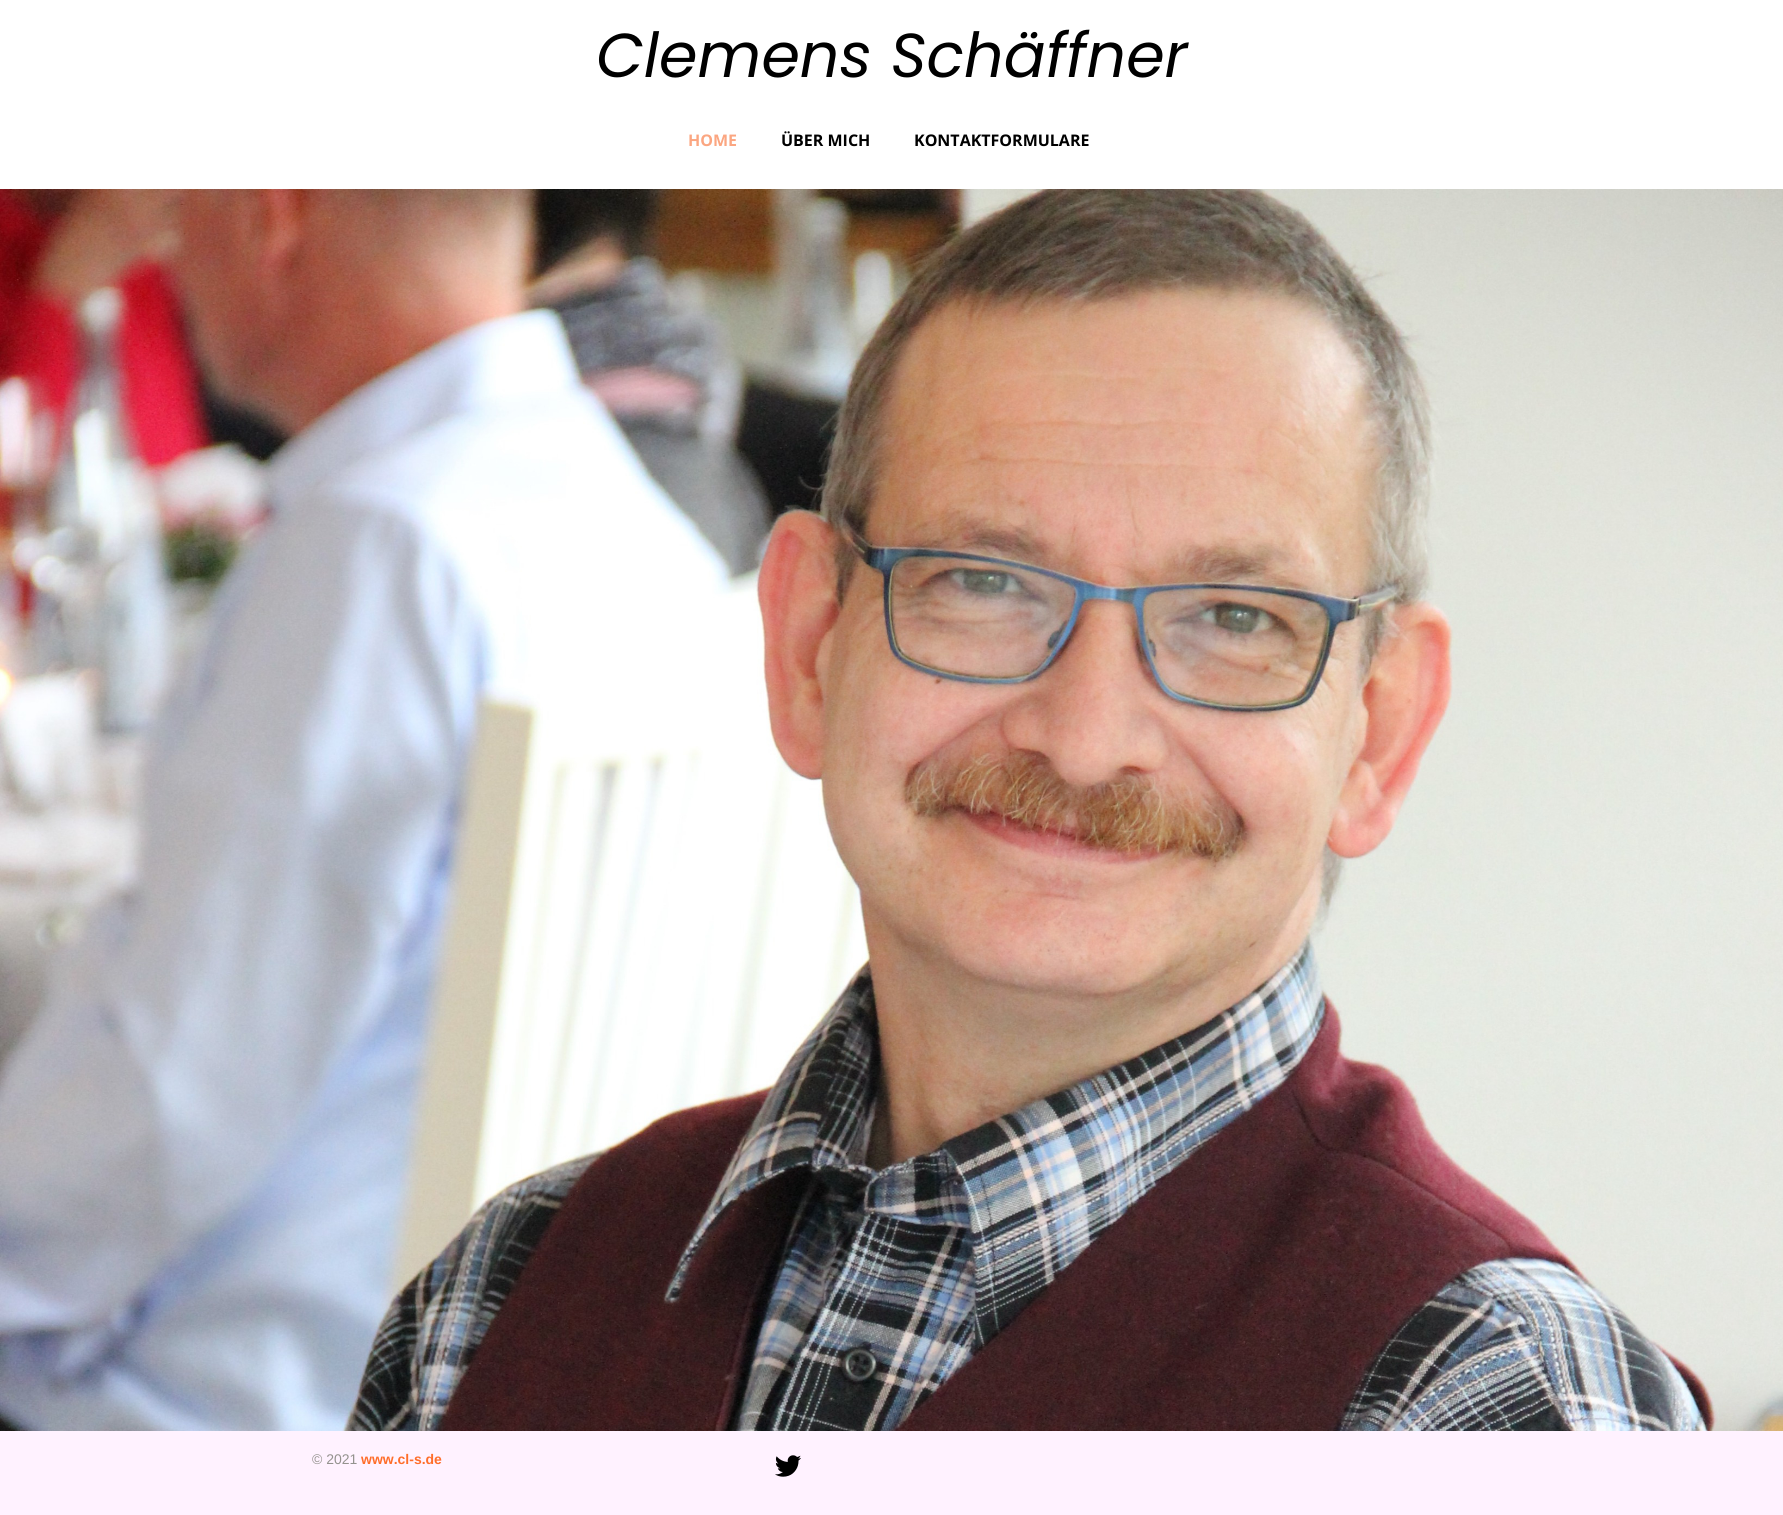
import math
import cairo

surface = cairo.ImageSurface(cairo.FORMAT_RGB24, 1783, 1515)
ctx = cairo.Context(surface)
options = cairo.FontOptions()
options.set_hint_metrics(cairo.HINT_METRICS_OFF)
options.set_hint_style(cairo.HINT_STYLE_NONE)
ctx.set_font_options(options)
ctx.set_miter_limit(4)


def set_color(code):
    ctx.set_source_rgb(*(v / 255 for v in bytes.fromhex(code[-6:])))


def draw_text(x, y, s, family, size, color, bold=False, italic=False):
    ctx.select_font_face(family, cairo.FONT_SLANT_ITALIC if italic else cairo.FONT_SLANT_NORMAL, cairo.FONT_WEIGHT_BOLD if bold else cairo.FONT_WEIGHT_NORMAL)
    ctx.set_font_size(size)
    set_color(color)
    ctx.move_to(x, y)
    ctx.show_text(s)


def fill_rect(x, y, w, h, color):
    set_color(color)
    ctx.rectangle(x, y, w, h)
    ctx.fill()


def draw_image(path, x, y, w, h):
    ctx.save()
    ctx.set_source_surface(cairo.ImageSurface.create_from_png(path), x, y)
    ctx.rectangle(x, y, w, h)
    ctx.fill()
    ctx.restore()


set_color("#ffffff")
ctx.paint()
draw_text(596, 77, "Clemens Schäffner", "Poppins", 62, "#000000", italic=True)
draw_text(688, 146, "HOME", "Open Sans", 16, "#fba681", bold=True)
draw_text(781, 146, "ÜBER MICH", "Open Sans", 16, "#000000", bold=True)
draw_text(914, 146, "KONTAKTFORMULARE", "Open Sans", 16, "#000000", bold=True)
draw_image("assets/img1.png", 0, 189, 1783, 1242)
fill_rect(0, 1431, 1783, 84, "#fff2ff")
draw_text(312, 1464, "© 2021", "Liberation Sans", 14, "#94928e")
draw_text(361, 1464, "www.cl-s.de", "Liberation Sans", 14, "#ff6e2b", bold=True)
draw_image("assets/img2.png", 775, 1455, 26, 22)
surface.write_to_png("output.png")
